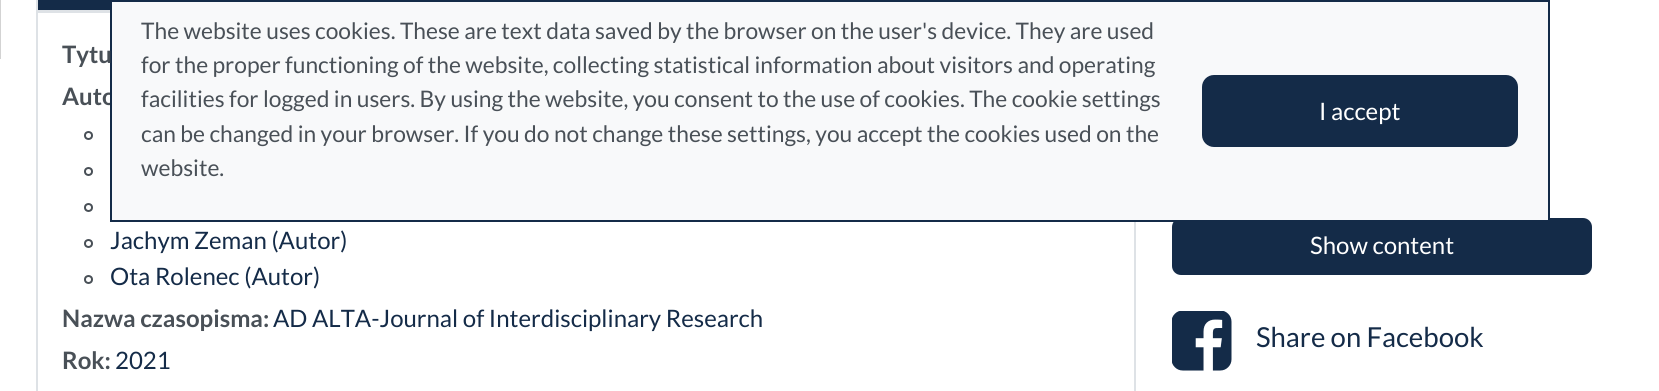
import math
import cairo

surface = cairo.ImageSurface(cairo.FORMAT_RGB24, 1659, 391)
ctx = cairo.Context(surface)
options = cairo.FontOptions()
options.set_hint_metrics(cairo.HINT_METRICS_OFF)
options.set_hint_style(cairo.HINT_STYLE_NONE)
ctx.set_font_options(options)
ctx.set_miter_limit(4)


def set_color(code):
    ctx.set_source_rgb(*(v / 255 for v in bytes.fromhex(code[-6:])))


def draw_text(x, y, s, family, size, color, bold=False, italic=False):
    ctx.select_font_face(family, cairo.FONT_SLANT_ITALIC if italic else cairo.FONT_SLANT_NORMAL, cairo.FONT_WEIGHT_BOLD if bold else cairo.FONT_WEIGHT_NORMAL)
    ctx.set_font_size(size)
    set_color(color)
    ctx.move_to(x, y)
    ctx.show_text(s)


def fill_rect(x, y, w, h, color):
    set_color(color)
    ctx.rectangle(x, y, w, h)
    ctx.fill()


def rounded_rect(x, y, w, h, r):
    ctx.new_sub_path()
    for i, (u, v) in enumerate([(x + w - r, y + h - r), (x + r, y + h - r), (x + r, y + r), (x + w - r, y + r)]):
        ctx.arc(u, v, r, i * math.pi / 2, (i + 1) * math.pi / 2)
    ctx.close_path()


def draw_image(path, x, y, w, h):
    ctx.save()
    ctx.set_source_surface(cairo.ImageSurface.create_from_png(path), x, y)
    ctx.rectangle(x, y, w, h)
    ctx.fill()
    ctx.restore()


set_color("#ffffff")
ctx.paint()
fill_rect(0, 0, 1, 59, "#d3d3d3")
fill_rect(38, 0, 72, 10, "#142b48")
ctx.rectangle(37, -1, 220, 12)
set_color("#dee2e6")
ctx.stroke()
fill_rect(36, 12, 74, 1, "#dee2e6")
ctx.set_fill_rule(cairo.FILL_RULE_EVEN_ODD)
ctx.new_path()
ctx.move_to(36, 12)
ctx.line_to(1136, 12)
ctx.line_to(1136, 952)
ctx.curve_to(1136, 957, 1131, 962, 1126, 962)
ctx.line_to(45, 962)
ctx.curve_to(40, 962, 36, 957, 36, 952)
ctx.close_path()
ctx.move_to(38, 12)
ctx.line_to(1134, 12)
ctx.line_to(1134, 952)
ctx.curve_to(1134, 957, 1131, 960, 1126, 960)
ctx.line_to(45, 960)
ctx.curve_to(41, 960, 38, 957, 38, 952)
ctx.close_path()
ctx.fill()
draw_text(62, 105, "Auto", "Lato", 24, "#495057", bold=True)
set_color("#142b48")
rounded_rect(1173, 219, 418, 55, 8)
ctx.fill_preserve()
ctx.stroke()
set_color("#f8f9fa")
ctx.rectangle(111, 1, 1438, 220)
ctx.fill_preserve()
set_color("#142b48")
ctx.stroke()
draw_text(141, 39, "The website uses cookies. These are text data saved by the browser on the user's device. They are used", "Lato", 22.8, "#495057")
draw_text(141, 73, "for the proper functioning of the website, collecting statistical information about visitors and operating", "Lato", 22.8, "#495057")
draw_text(141, 107, "facilities for logged in users. By using the website, you consent to the use of cookies. The cookie settings", "Lato", 22.8, "#495057")
draw_text(141, 142, "can be changed in your browser. If you do not change these settings, you accept the cookies used on the", "Lato", 22.8, "#495057")
draw_text(141, 176, "website.", "Lato", 22.8, "#495057")
set_color("#142b48")
rounded_rect(1203, 76, 314, 70, 11)
ctx.fill_preserve()
ctx.stroke()
draw_text(1319, 120, "I accept", "Lato", 24, "#ffffff")
draw_text(62, 63, "Tytu", "Lato", 24, "#495057", bold=True)
ctx.new_path()
ctx.arc(88.5, 135.5, 3.5, 0, 2 * math.pi)
ctx.stroke()
ctx.arc(88.5, 171.5, 3.5, 0, 2 * math.pi)
ctx.stroke()
ctx.arc(88.5, 207.5, 3.5, 0, 2 * math.pi)
ctx.stroke()
ctx.arc(88.5, 243.5, 3.5, 0, 2 * math.pi)
ctx.stroke()
draw_text(110, 249, "Jachym Zeman (Autor)", "Lato", 24, "#142b48")
ctx.new_path()
ctx.arc(88.5, 279.5, 3.5, 0, 2 * math.pi)
set_color("#495057")
ctx.stroke()
draw_text(110, 285, "Ota Rolenec (Autor)", "Lato", 24, "#142b48")
draw_text(62, 327, "Nazwa czasopisma:", "Lato", 24, "#495057", bold=True)
draw_text(273, 327, "AD ALTA-Journal of Interdisciplinary Research", "Lato", 24, "#142b48")
draw_text(62, 369, "Rok:", "Lato", 24, "#495057", bold=True)
draw_text(115, 369, "2021", "Lato", 24, "#142b48")
draw_text(1310, 254, "Show content", "Lato", 24, "#ffffff")
draw_image("assets/img1.png", 1172, 311, 60, 60)
draw_text(1256, 347, "Share on Facebook", "Lato", 27.5, "#142b48")
surface.write_to_png("output.png")
